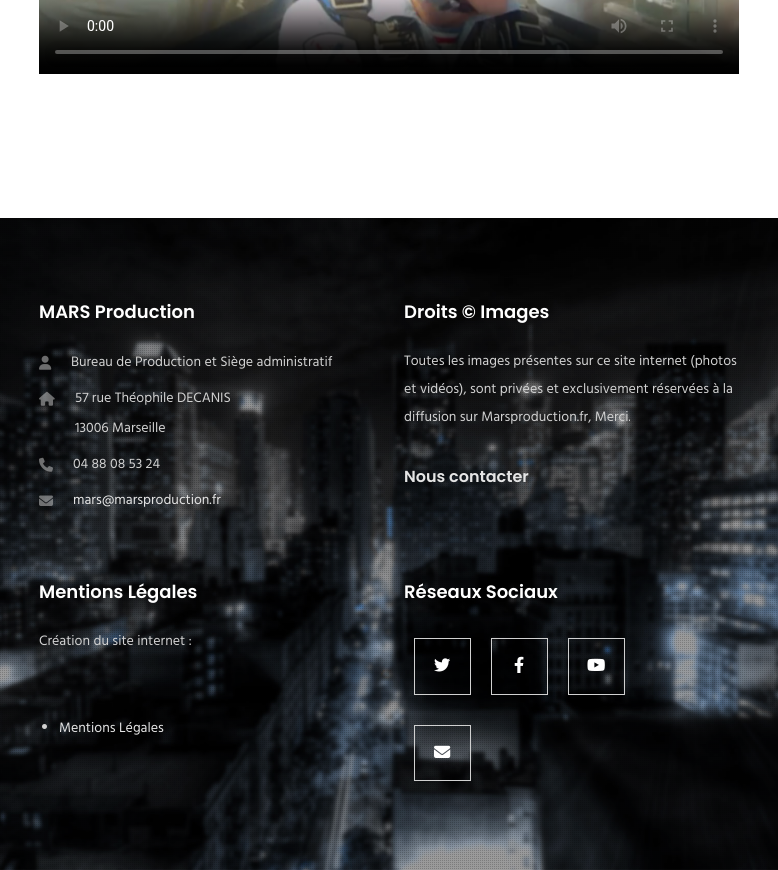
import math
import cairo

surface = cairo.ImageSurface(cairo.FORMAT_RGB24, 778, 870)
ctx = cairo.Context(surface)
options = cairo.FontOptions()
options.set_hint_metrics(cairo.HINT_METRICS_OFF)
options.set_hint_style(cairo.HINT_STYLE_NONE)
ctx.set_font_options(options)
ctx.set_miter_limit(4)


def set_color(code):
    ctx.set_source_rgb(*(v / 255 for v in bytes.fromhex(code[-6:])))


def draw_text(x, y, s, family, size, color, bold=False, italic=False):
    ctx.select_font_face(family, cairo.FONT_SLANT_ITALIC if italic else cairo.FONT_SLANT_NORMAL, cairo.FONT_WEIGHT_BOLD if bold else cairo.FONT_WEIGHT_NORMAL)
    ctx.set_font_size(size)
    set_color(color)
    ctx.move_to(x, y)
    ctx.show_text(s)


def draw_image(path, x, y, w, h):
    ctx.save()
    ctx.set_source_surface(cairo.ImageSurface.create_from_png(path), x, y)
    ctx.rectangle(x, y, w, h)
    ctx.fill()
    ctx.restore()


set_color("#ffffff")
ctx.paint()
draw_image("assets/img1.png", 39, 0, 700, 74)
draw_image("assets/img2.png", 0, 218, 778, 652)
draw_image("assets/img3.png", 0, 218, 777, 651)
draw_text(39, 318, "MARS Production", "Poppins SemiBold", 18, "#ffffff")
draw_image("assets/img4.png", 39, 355, 13, 15)
draw_text(71, 366, "Bureau de Production et Siège administratif", "Hind", 14, "#d1d1d1")
draw_image("assets/img5.png", 39, 391, 16, 15)
draw_text(75, 402, "57 rue Théophile DECANIS", "Hind", 14, "#d1d1d1")
draw_text(75, 432, "13006 Marseille", "Hind", 14, "#d1d1d1")
draw_image("assets/img6.png", 39, 457, 14, 15)
draw_text(73, 468, "04 88 08 53 24", "Hind", 14, "#d1d1d1")
draw_image("assets/img7.png", 39, 495, 14, 11)
draw_text(73, 504, "mars@marsproduction.fr", "Hind", 14, "#e5e5e5")
draw_text(404, 318, "Droits © Images", "Poppins SemiBold", 18, "#ffffff")
draw_text(404, 365, "Toutes les images présentes sur ce site internet (photos", "Hind", 14, "#d1d1d1")
draw_text(404, 393, "et vidéos), sont privées et exclusivement réservées à la", "Hind", 14, "#d1d1d1")
draw_text(404, 421, "diffusion sur Marsproduction.fr, Merci.", "Hind", 14, "#d1d1d1")
draw_text(404, 482, "Nous contacter", "Poppins SemiBold", 16, "#e5e5e5")
draw_text(39, 598, "Mentions Légales", "Poppins SemiBold", 18, "#ffffff")
draw_text(39, 645, "Création du site internet :", "Hind", 14, "#d1d1d1")
ctx.new_path()
ctx.arc(44.5, 726.5, 2.5, 0, 2 * math.pi)
ctx.fill()
draw_text(59, 732, "Mentions Légales", "Hind", 14, "#e5e5e5")
draw_text(404, 598, "Réseaux Sociaux", "Poppins SemiBold", 18, "#ffffff")
ctx.rectangle(414.5, 638.5, 56, 56)
set_color("#d1d1d1")
ctx.set_line_width(1)
ctx.stroke()
draw_image("assets/img8.png", 434, 658, 16, 14)
ctx.rectangle(491.5, 638.5, 56, 56)
ctx.stroke()
draw_image("assets/img9.png", 514, 656, 10, 17)
ctx.rectangle(568.5, 638.5, 56, 56)
ctx.stroke()
draw_image("assets/img10.png", 587, 658, 18, 13)
ctx.rectangle(414.5, 725.5, 56, 55)
ctx.stroke()
draw_image("assets/img11.png", 434, 745, 17, 13)
surface.write_to_png("output.png")
